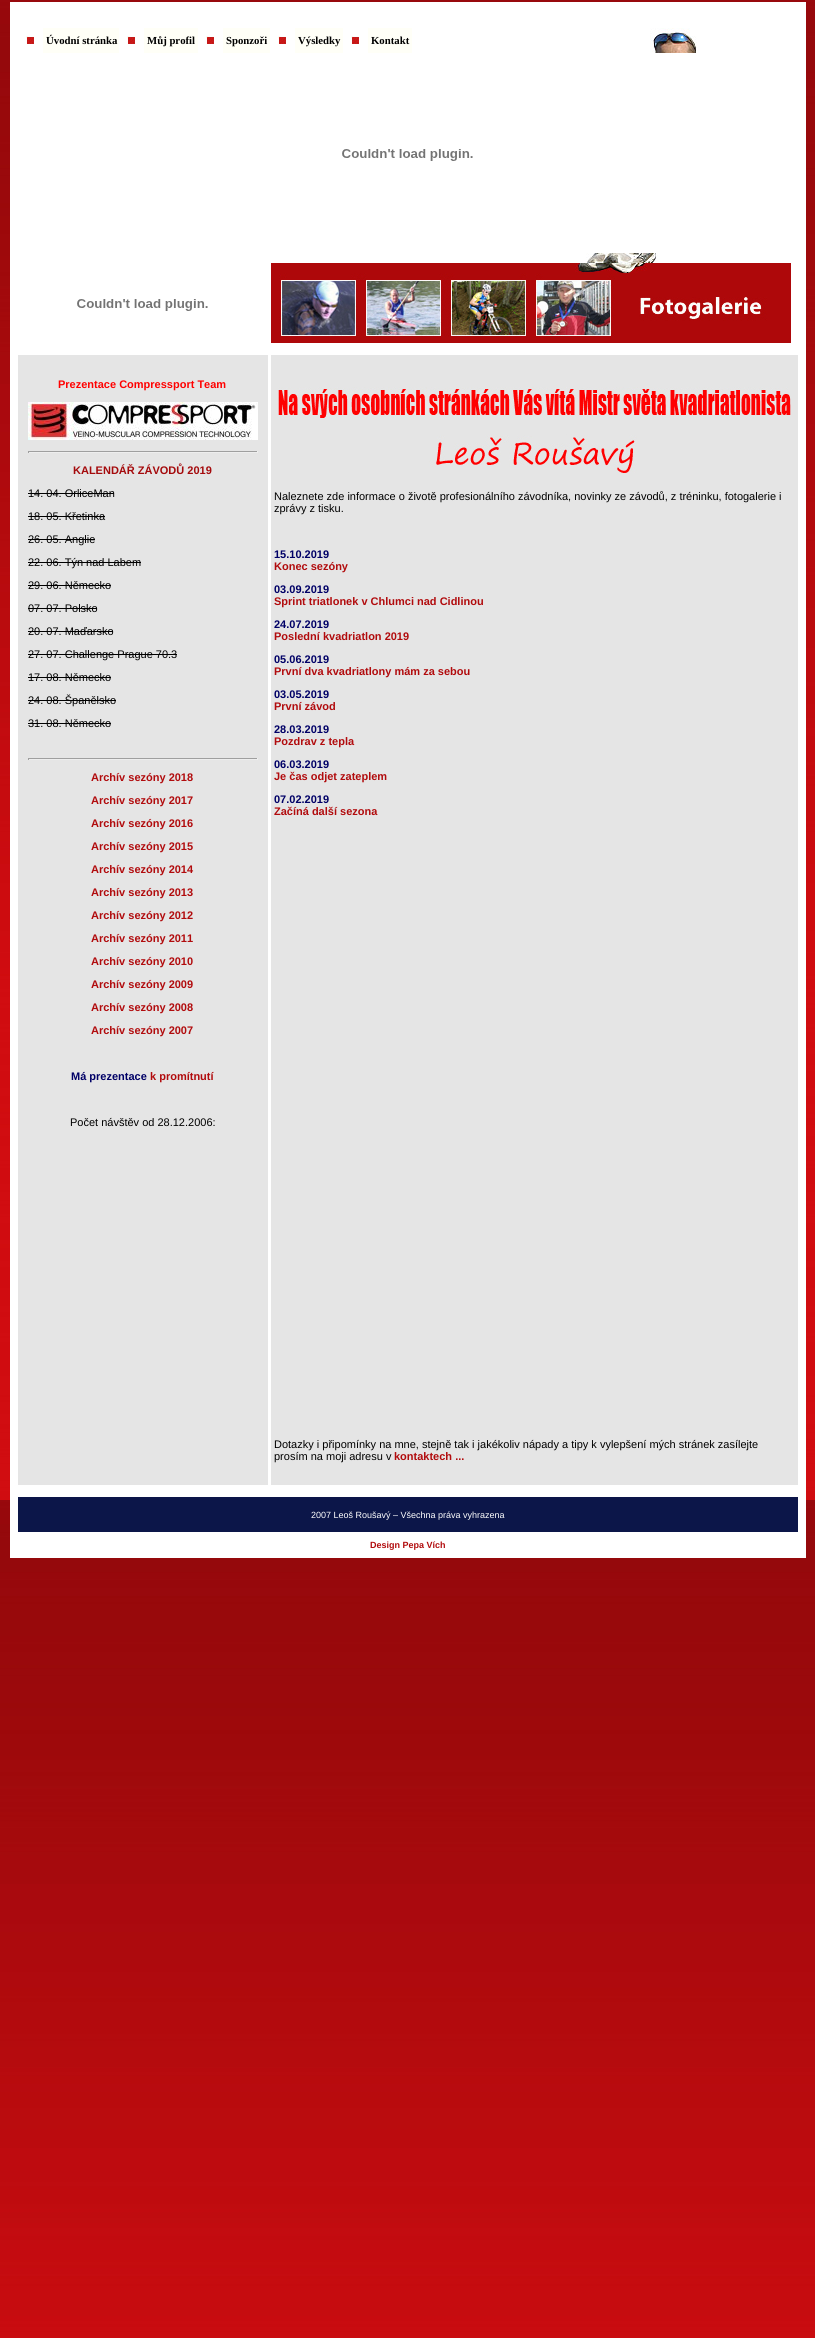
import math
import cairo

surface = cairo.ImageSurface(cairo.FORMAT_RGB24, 815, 2338)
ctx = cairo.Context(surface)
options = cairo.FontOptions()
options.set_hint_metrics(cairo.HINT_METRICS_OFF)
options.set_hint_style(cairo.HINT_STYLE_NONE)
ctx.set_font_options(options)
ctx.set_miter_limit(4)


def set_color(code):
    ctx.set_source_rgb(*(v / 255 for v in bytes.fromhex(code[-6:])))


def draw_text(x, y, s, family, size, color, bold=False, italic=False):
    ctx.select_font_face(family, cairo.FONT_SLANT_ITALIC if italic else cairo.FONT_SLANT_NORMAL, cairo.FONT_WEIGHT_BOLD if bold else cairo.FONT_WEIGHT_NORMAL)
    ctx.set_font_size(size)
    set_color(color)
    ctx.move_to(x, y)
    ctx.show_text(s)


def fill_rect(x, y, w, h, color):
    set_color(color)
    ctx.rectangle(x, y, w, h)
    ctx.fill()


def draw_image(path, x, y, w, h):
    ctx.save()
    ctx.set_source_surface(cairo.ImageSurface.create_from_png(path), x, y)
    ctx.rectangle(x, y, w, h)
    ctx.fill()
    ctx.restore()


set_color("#ffffff")
ctx.paint()
draw_image("assets/img1.png", 0, 0, 815, 2338)
fill_rect(10, 2, 796, 1556, "#ffffff")
draw_image("assets/img2.png", 650, 28, 47, 25)
fill_rect(43, 28, 369, 25, "#fffff7")
draw_image("assets/img3.png", 18, 28, 25, 25)
draw_text(46, 44, "Úvodní stránka", "Liberation Serif", 10.75, "#000000", bold=True)
draw_image("assets/img3.png", 119, 28, 25, 25)
draw_text(147, 44, "Můj profil", "Liberation Serif", 10.75, "#000000", bold=True)
draw_image("assets/img3.png", 198, 28, 25, 25)
draw_text(226, 44, "Sponzoři", "Liberation Serif", 10.75, "#000000", bold=True)
draw_image("assets/img3.png", 270, 28, 25, 25)
draw_text(298, 44, "Výsledky", "Liberation Serif", 10.75, "#000000", bold=True)
draw_image("assets/img3.png", 343, 28, 25, 25)
draw_text(371, 44, "Kontakt", "Liberation Serif", 10.75, "#000000", bold=True)
draw_image("assets/img4.png", 342, 149, 131, 12)
draw_image("assets/img5.png", 586, 253, 72, 10)
draw_image("assets/img4.png", 77, 299, 131, 12)
draw_image("assets/img6.png", 271, 263, 520, 10)
draw_image("assets/img7.png", 271, 273, 520, 70)
fill_rect(18, 355, 250, 1130, "#e5e5e5")
draw_text(58, 388, "Prezentace Compressport Team", "Liberation Sans", 11, "#ff0000", bold=True)
draw_image("assets/img8.png", 28, 402, 230, 38)
fill_rect(28, 451, 230, 1, "#9f9f9f")
fill_rect(257, 451, 1, 2, "#eeeeee")
fill_rect(28, 452, 230, 1, "#eeeeee")
fill_rect(28, 451, 1, 2, "#9f9f9f")
draw_text(73, 474, "KALENDÁŘ ZÁVODŮ 2019", "Liberation Sans", 11, "#a40a0c", bold=True)
draw_text(28, 497, "14. 04. OrliceMan", "Liberation Sans", 11, "#000000")
fill_rect(28, 493, 86, 1, "#000000")
draw_text(28, 520, "18. 05. Křetinka", "Liberation Sans", 11, "#000000")
fill_rect(28, 516, 77, 1, "#000000")
draw_text(28, 543, "26. 05. Anglie", "Liberation Sans", 11, "#000000")
fill_rect(28, 539, 67, 1, "#000000")
draw_text(28, 566, "22. 06. Týn nad Labem", "Liberation Sans", 11, "#000000")
fill_rect(28, 562, 113, 1, "#000000")
draw_text(28, 589, "29. 06. Německo", "Liberation Sans", 11, "#000000")
fill_rect(28, 585, 83, 1, "#000000")
draw_text(28, 612, "07. 07. Polsko", "Liberation Sans", 11, "#000000")
fill_rect(28, 608, 69, 1, "#000000")
draw_text(28, 635, "20. 07. Maďarsko", "Liberation Sans", 11, "#000000")
fill_rect(28, 631, 85, 1, "#000000")
draw_text(28, 658, "27. 07. Challenge Prague 70.3", "Liberation Sans", 11, "#000000")
fill_rect(28, 654, 149, 1, "#000000")
draw_text(28, 681, "17. 08. Německo", "Liberation Sans", 11, "#000000")
fill_rect(28, 677, 83, 1, "#000000")
draw_text(28, 704, "24. 08. Španělsko", "Liberation Sans", 11, "#000000")
fill_rect(28, 700, 88, 1, "#000000")
draw_text(28, 727, "31. 08. Německo", "Liberation Sans", 11, "#000000")
fill_rect(28, 723, 83, 1, "#000000")
fill_rect(28, 758, 230, 1, "#9f9f9f")
fill_rect(257, 758, 1, 2, "#eeeeee")
fill_rect(28, 759, 230, 1, "#eeeeee")
fill_rect(28, 758, 1, 2, "#9f9f9f")
draw_text(91, 781, "Archív sezóny 2018", "Liberation Sans", 11, "#b10b0d", bold=True)
draw_text(91, 804, "Archív sezóny 2017", "Liberation Sans", 11, "#b10b0d", bold=True)
draw_text(91, 827, "Archív sezóny 2016", "Liberation Sans", 11, "#b10b0d", bold=True)
draw_text(91, 850, "Archív sezóny 2015", "Liberation Sans", 11, "#b10b0d", bold=True)
draw_text(91, 873, "Archív sezóny 2014", "Liberation Sans", 11, "#b10b0d", bold=True)
draw_text(91, 896, "Archív sezóny 2013", "Liberation Sans", 11, "#b10b0d", bold=True)
draw_text(91, 919, "Archív sezóny 2012", "Liberation Sans", 11, "#b10b0d", bold=True)
draw_text(91, 942, "Archív sezóny 2011", "Liberation Sans", 11, "#b10b0d", bold=True)
draw_text(91, 965, "Archív sezóny 2010", "Liberation Sans", 11, "#b10b0d", bold=True)
draw_text(91, 988, "Archív sezóny 2009", "Liberation Sans", 11, "#b10b0d", bold=True)
draw_text(91, 1011, "Archív sezóny 2008", "Liberation Sans", 11, "#b10b0d", bold=True)
draw_text(91, 1034, "Archív sezóny 2007", "Liberation Sans", 11, "#b10b0d", bold=True)
draw_text(71, 1080, "Má prezentace", "Liberation Sans", 11, "#000066", bold=True)
draw_text(150, 1080, "k promítnutí", "Liberation Sans", 11, "#b10b0d", bold=True)
draw_text(70, 1126, "Počet návštěv od 28.12.2006:", "Liberation Sans", 11, "#000000")
fill_rect(271, 355, 527, 1130, "#e5e5e5")
draw_image("assets/img9.png", 278, 387, 513, 86)
draw_text(274, 500, "Naleznete zde informace o životě profesionálního závodníka, novinky ze závodů, z tréninku, fotogalerie i", "Liberation Sans", 11, "#000000")
draw_text(274, 512, "zprávy z tisku.", "Liberation Sans", 11, "#000000")
draw_text(274, 558, "15.10.2019", "Liberation Sans", 11, "#000066", bold=True)
draw_text(274, 570, "Konec sezóny", "Liberation Sans", 11, "#b10b0d", bold=True)
draw_text(274, 593, "03.09.2019", "Liberation Sans", 11, "#000066", bold=True)
draw_text(274, 605, "Sprint triatlonek v Chlumci nad Cidlinou", "Liberation Sans", 11, "#b10b0d", bold=True)
draw_text(274, 628, "24.07.2019", "Liberation Sans", 11, "#000066", bold=True)
draw_text(274, 640, "Poslední kvadriatlon 2019", "Liberation Sans", 11, "#b10b0d", bold=True)
draw_text(274, 663, "05.06.2019", "Liberation Sans", 11, "#000066", bold=True)
draw_text(274, 675, "První dva kvadriatlony mám za sebou", "Liberation Sans", 11, "#b10b0d", bold=True)
draw_text(274, 698, "03.05.2019", "Liberation Sans", 11, "#000066", bold=True)
draw_text(274, 710, "První závod", "Liberation Sans", 11, "#b10b0d", bold=True)
draw_text(274, 733, "28.03.2019", "Liberation Sans", 11, "#000066", bold=True)
draw_text(274, 745, "Pozdrav z tepla", "Liberation Sans", 11, "#b10b0d", bold=True)
draw_text(274, 768, "06.03.2019", "Liberation Sans", 11, "#000066", bold=True)
draw_text(274, 780, "Je čas odjet zateplem", "Liberation Sans", 11, "#b10b0d", bold=True)
draw_text(274, 803, "07.02.2019", "Liberation Sans", 11, "#000066", bold=True)
draw_text(274, 815, "Začíná další sezona", "Liberation Sans", 11, "#b10b0d", bold=True)
draw_text(274, 1448, "Dotazky i připomínky na mne, stejně tak i jakékoliv nápady a tipy k vylepšení mých stránek zasílejte", "Liberation Sans", 11, "#000000")
draw_text(274, 1460, "prosím na moji adresu v", "Liberation Sans", 11, "#000000")
draw_text(394, 1460, "kontaktech ...", "Liberation Sans", 11, "#b10b0d", bold=True)
fill_rect(18, 1497, 780, 35, "#0c1649")
draw_text(311, 1518, "2007 Leoš Roušavý – Všechna práva vyhrazena", "Liberation Sans", 9, "#ffffff")
draw_text(370, 1548, "Design Pepa Vích", "Liberation Sans", 9, "#b10b0d", bold=True)
surface.write_to_png("output.png")
